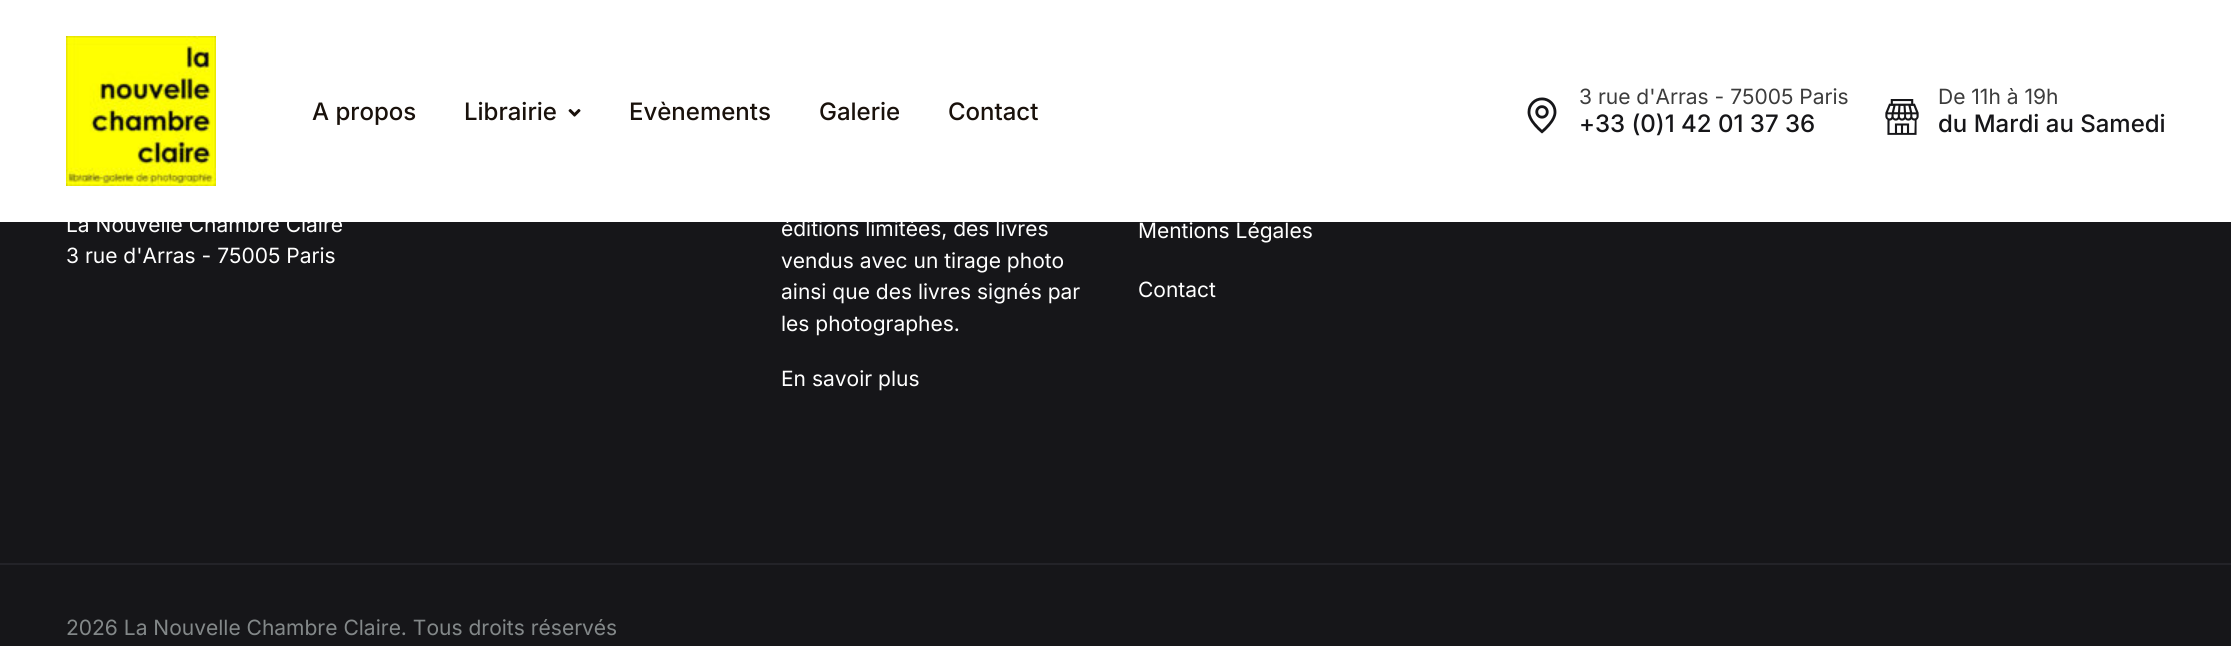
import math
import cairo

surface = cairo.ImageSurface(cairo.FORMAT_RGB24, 2231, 646)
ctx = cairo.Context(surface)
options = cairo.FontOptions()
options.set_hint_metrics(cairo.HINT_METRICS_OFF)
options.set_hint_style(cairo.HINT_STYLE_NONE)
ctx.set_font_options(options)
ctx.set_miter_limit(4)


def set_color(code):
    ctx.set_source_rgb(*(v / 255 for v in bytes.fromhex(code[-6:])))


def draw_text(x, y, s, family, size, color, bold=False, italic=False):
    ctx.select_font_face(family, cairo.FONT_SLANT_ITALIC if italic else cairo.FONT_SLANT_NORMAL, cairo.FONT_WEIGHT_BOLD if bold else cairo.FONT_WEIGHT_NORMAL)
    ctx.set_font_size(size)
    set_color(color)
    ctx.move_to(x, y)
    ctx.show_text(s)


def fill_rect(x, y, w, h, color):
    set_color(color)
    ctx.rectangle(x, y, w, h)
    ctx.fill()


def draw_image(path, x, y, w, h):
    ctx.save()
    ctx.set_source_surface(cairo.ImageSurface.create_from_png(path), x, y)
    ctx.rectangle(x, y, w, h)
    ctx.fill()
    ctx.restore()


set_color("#161619")
ctx.paint()
fill_rect(0, 0, 2231, 222, "#ffffff")
draw_image("assets/img1.png", 66, 36, 150, 150)
draw_text(312, 120, "A propos", "Inter Medium", 24, "#19110b")
draw_text(464, 120, "Librairie", "Inter Medium", 24, "#19110b")
draw_image("assets/img2.png", 568, 109, 13, 8)
draw_text(629, 120, "Evènements", "Inter Medium", 24, "#19110b")
draw_text(819, 120, "Galerie", "Inter Medium", 24, "#19110b")
draw_text(948, 120, "Contact", "Inter Medium", 24, "#19110b")
draw_image("assets/img3.png", 1527, 97, 30, 37)
draw_text(1579, 104, "3 rue d'Arras - 75005 Paris", "Inter", 21, "#3c3c3c")
draw_text(1579, 132, "+33 (0)1 42 01 37 36", "Inter Medium", 24, "#161619")
draw_image("assets/img4.png", 1885, 99, 34, 36)
draw_text(1938, 104, "De 11h à 19h", "Inter", 21, "#3c3c3c")
draw_text(1938, 132, "du Mardi au Samedi", "Inter Medium", 24, "#161619")
draw_text(66, 232, "La Nouvelle Chambre Claire", "Inter", 21, "#ffffff")
draw_text(66, 263, "3 rue d'Arras - 75005 Paris", "Inter", 21, "#ffffff")
draw_text(781, 236, "éditions limitées, des livres", "Inter", 21, "#ffffff")
draw_text(781, 268, "vendus avec un tirage photo", "Inter", 21, "#ffffff")
draw_text(781, 299, "ainsi que des livres signés par", "Inter", 21, "#ffffff")
draw_text(781, 331, "les photographes.", "Inter", 21, "#ffffff")
draw_text(781, 386, "En savoir plus", "Inter", 21, "#ffffff")
draw_text(1138, 238, "Mentions Légales", "Inter", 21, "#ffffff")
draw_text(1138, 297, "Contact", "Inter", 21, "#ffffff")
fill_rect(0, 563, 2231, 2, "#232328")
draw_text(66, 635, "2026 La Nouvelle Chambre Claire. Tous droits réservés", "Inter", 21, "#838889")
surface.write_to_png("output.png")
